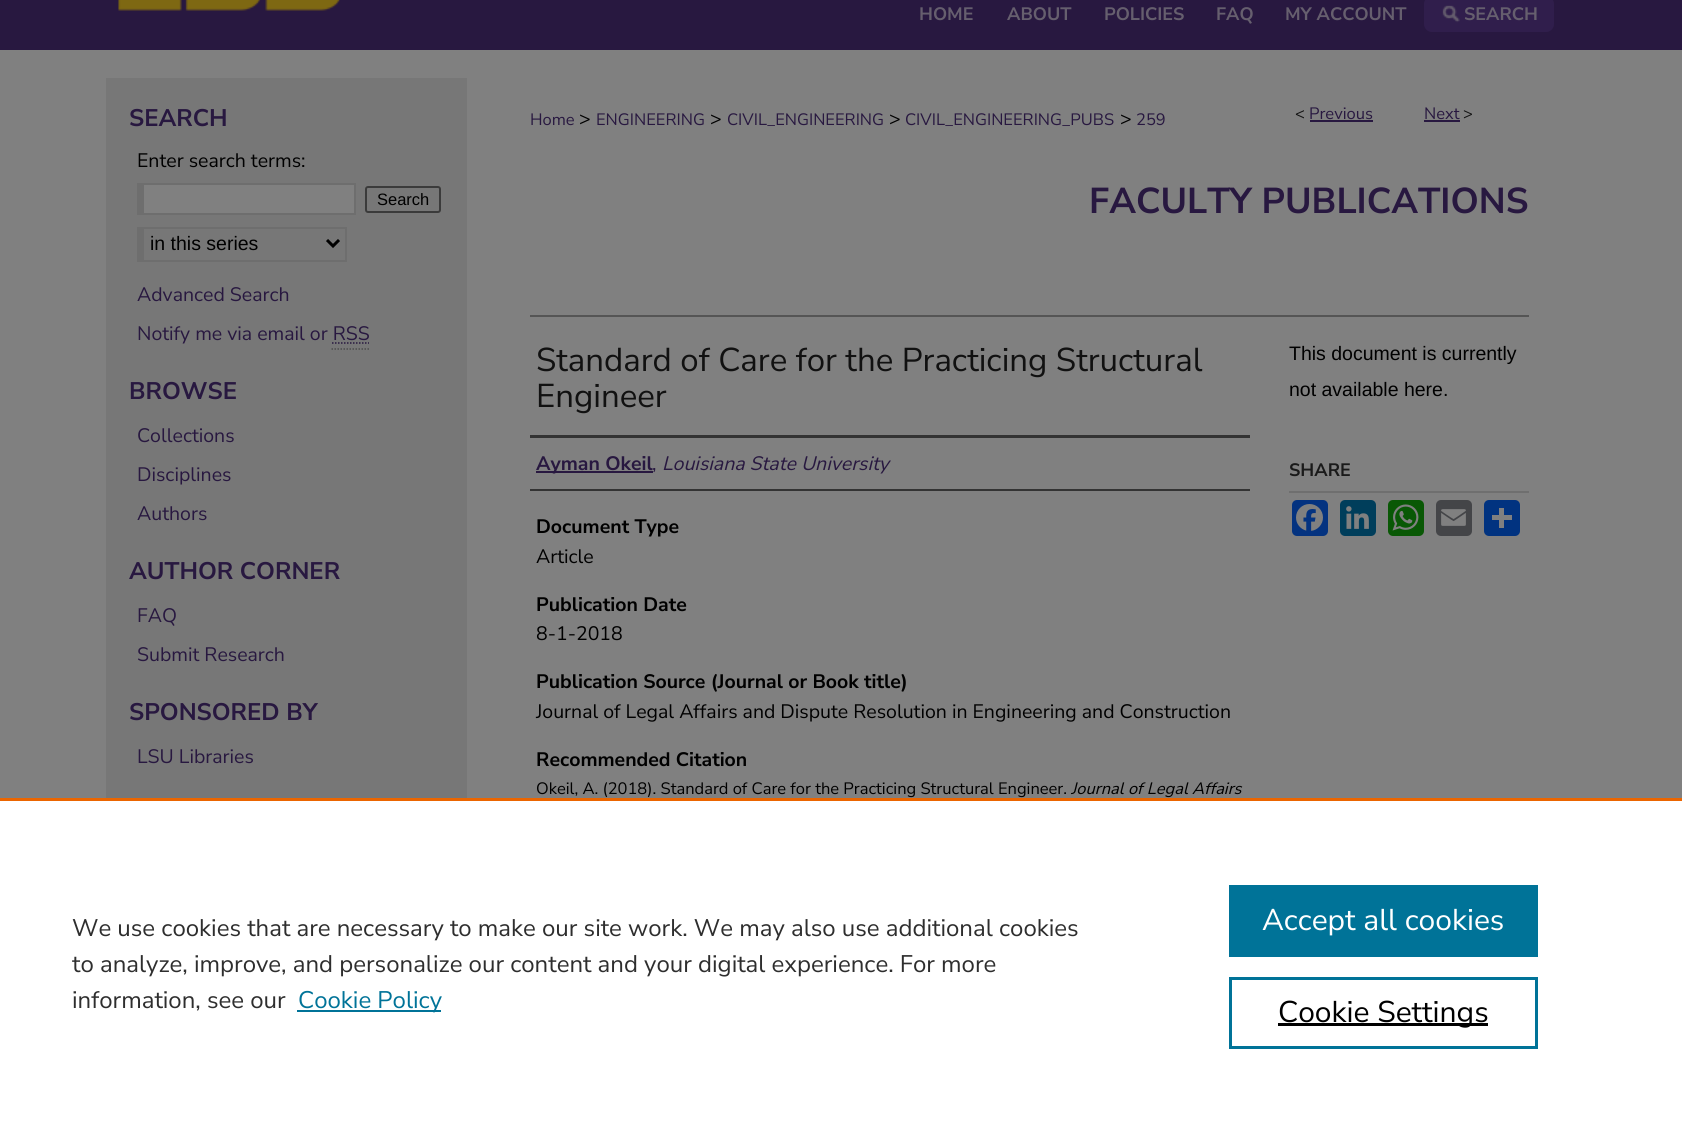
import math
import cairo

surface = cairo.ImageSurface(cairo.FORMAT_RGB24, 1682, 1128)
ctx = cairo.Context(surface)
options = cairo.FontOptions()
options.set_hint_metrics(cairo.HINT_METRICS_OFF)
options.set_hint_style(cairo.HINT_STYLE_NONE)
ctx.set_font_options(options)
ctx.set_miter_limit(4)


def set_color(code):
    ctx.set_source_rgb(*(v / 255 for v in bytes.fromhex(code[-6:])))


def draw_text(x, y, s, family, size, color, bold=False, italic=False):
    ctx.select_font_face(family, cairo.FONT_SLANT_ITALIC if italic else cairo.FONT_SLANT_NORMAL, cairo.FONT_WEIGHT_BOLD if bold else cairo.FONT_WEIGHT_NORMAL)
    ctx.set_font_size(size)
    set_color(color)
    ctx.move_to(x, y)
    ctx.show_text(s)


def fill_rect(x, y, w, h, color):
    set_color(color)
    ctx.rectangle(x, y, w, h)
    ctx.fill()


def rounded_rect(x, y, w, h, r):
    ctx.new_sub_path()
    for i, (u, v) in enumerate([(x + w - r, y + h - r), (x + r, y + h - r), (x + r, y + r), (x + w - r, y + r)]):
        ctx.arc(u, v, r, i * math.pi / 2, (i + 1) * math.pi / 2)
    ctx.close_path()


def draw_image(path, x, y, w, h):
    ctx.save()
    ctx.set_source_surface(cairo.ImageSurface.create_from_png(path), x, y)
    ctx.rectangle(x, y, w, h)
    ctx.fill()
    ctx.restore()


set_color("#808080")
ctx.paint()
fill_rect(0, 0, 1682, 50, "#281840")
draw_image("assets/img1.png", 118, 0, 222, 11)
draw_text(919, 20, "HOME", "Nunito Sans", 18, "#665f6e", bold=True)
draw_text(1007, 20, "ABOUT", "Nunito Sans", 18, "#665f6e", bold=True)
draw_text(1104, 20, "POLICIES", "Nunito Sans", 18, "#665f6e", bold=True)
draw_text(1216, 20, "FAQ", "Nunito Sans", 18, "#665f6e", bold=True)
draw_text(1285, 20, "MY ACCOUNT", "Nunito Sans", 18, "#665f6e", bold=True)
set_color("#301e4c")
rounded_rect(1424, -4, 130, 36, 8)
ctx.fill()
draw_image("assets/img2.png", 1442, 5, 18, 18)
draw_text(1464, 20, "SEARCH", "Nunito Sans", 18, "#665f6e", bold=True)
fill_rect(106, 78, 361, 720, "#777777")
draw_text(129, 126, "SEARCH", "Nunito Sans", 24, "#281840", bold=True)
draw_text(137, 167, "Enter search terms:", "Nunito Sans", 19.5, "#000000")
fill_rect(144, 185, 210, 28, "#808080")
fill_rect(137, 183, 219, 2, "#6e6e6e")
fill_rect(354, 183, 2, 32, "#6e6e6e")
fill_rect(137, 213, 219, 2, "#6e6e6e")
fill_rect(137, 183, 7, 32, "#6e6e6e")
rounded_rect(366, 187, 74, 25, 2)
set_color("#3b3b3b")
ctx.stroke()
draw_text(377, 205, "Search", "Liberation Sans", 16.5, "#000000")
fill_rect(137, 227, 210, 2, "#6e6e6e")
fill_rect(345, 227, 2, 34, "#6e6e6e")
fill_rect(137, 260, 210, 2, "#6e6e6e")
fill_rect(137, 227, 7, 34, "#6e6e6e")
ctx.new_path()
ctx.move_to(327, 240)
ctx.line_to(333, 246)
ctx.line_to(339, 240)
set_color("#000000")
ctx.set_line_width(3)
ctx.stroke()
draw_text(150, 250, "in this series", "Liberation Sans", 19.5, "#000000")
draw_text(137, 301, "Advanced Search", "Nunito Sans", 19.5, "#281840")
draw_text(137, 340, "Notify me via email or RSS", "Nunito Sans", 19.5, "#281840")
ctx.new_path()
ctx.move_to(332, 343)
ctx.line_to(369, 343)
ctx.set_line_width(1.5)
ctx.set_dash([1.5, 1.5])
ctx.stroke()
ctx.new_path()
ctx.move_to(331.5, 349)
ctx.line_to(369, 349)
set_color("#4d4d4d")
ctx.stroke()
draw_text(129, 399, "BROWSE", "Nunito Sans", 24, "#281840", bold=True)
draw_text(137, 442, "Collections", "Nunito Sans", 19.5, "#281840")
draw_text(137, 481, "Disciplines", "Nunito Sans", 19.5, "#281840")
draw_text(137, 520, "Authors", "Nunito Sans", 19.5, "#281840")
draw_text(129, 579, "AUTHOR CORNER", "Nunito Sans", 24, "#281840", bold=True)
draw_text(137, 622, "FAQ", "Nunito Sans", 19.5, "#281840")
draw_text(137, 661, "Submit Research", "Nunito Sans", 19.5, "#281840")
draw_text(129, 720, "SPONSORED BY", "Nunito Sans", 24, "#281840", bold=True)
draw_text(137, 763, "LSU Libraries", "Nunito Sans", 19.5, "#281840")
draw_text(530, 125, "Home", "Nunito Sans", 16.5, "#281840")
draw_text(579, 125, ">", "Nunito Sans", 19.5, "#000000")
draw_text(596, 125, "ENGINEERING", "Nunito Sans", 16.5, "#281840")
draw_text(710, 125, ">", "Nunito Sans", 19.5, "#000000")
draw_text(727, 125, "CIVIL_ENGINEERING", "Nunito Sans", 16.5, "#281840")
draw_text(889, 125, ">", "Nunito Sans", 19.5, "#000000")
draw_text(905, 125, "CIVIL_ENGINEERING_PUBS", "Nunito Sans", 16.5, "#281840")
draw_text(1120, 125, ">", "Nunito Sans", 19.5, "#000000")
draw_text(1136, 125, "259", "Nunito Sans", 16.5, "#281840")
draw_text(1295, 119, "<", "Nunito Sans", 16.5, "#111111")
draw_text(1309, 119, "Previous", "Nunito Sans", 16.5, "#281840")
fill_rect(1310, 120, 63, 2, "#281840")
draw_text(1424, 119, "Next", "Nunito Sans", 16.5, "#281840")
fill_rect(1424, 120, 36, 2, "#281840")
draw_text(1463, 119, ">", "Nunito Sans", 16.5, "#111111")
draw_text(1089, 213, "FACULTY PUBLICATIONS", "Nunito Sans", 36, "#281840", bold=True)
fill_rect(530, 315, 999, 2, "#555555")
draw_text(536, 371, "Standard of Care for the Practicing Structural", "Nunito Sans", 33, "#111111")
draw_text(536, 407, "Engineer", "Nunito Sans", 33, "#111111")
fill_rect(530, 435, 720, 3, "#333333")
fill_rect(530, 489, 720, 2, "#333333")
fill_rect(536, 471, 117, 2, "#281840")
draw_text(536, 470, "Ayman Okeil", "Nunito Sans", 19.5, "#281840", bold=True)
draw_text(652, 470, ",", "Nunito Sans", 19.5, "#281840")
draw_text(662, 470, "Louisiana State University", "Nunito Sans", 19.5, "#281840", italic=True)
draw_text(536, 533, "Document Type", "Nunito Sans", 19.5, "#000000", bold=True)
draw_text(536, 563, "Article", "Nunito Sans", 19.5, "#000000")
draw_text(536, 611, "Publication Date", "Nunito Sans", 19.5, "#000000", bold=True)
draw_text(536, 640, "8-1-2018", "Nunito Sans", 19.5, "#000000")
draw_text(536, 688, "Publication Source (Journal or Book title)", "Nunito Sans", 19.5, "#000000", bold=True)
draw_text(536, 718, "Journal of Legal Affairs and Dispute Resolution in Engineering and Construction", "Nunito Sans", 19.5, "#000000")
draw_text(536, 766, "Recommended Citation", "Nunito Sans", 19.5, "#000000", bold=True)
draw_text(536, 794, "Okeil, A. (2018). Standard of Care for the Practicing Structural Engineer.", "Nunito Sans", 16.5, "#000000")
draw_text(1071, 794, "Journal of Legal Affairs", "Nunito Sans", 16.5, "#000000", italic=True)
draw_text(1289, 360, "This document is currently", "Liberation Sans", 19.5, "#000000")
draw_text(1289, 396, "not available here.", "Liberation Sans", 19.5, "#000000")
fill_rect(1289, 491, 240, 2, "#6f6f6f")
draw_text(1289, 476, "SHARE", "Nunito Sans", 18, "#1a1a1a", bold=True)
set_color("#043380")
rounded_rect(1292, 500, 36, 36, 5)
ctx.fill()
draw_image("assets/img3.png", 1296, 504, 27, 27)
set_color("#003e5b")
rounded_rect(1340, 500, 36, 36, 5)
ctx.fill()
draw_image("assets/img4.png", 1346, 506, 23, 23)
set_color("#095805")
rounded_rect(1388, 500, 36, 36, 5)
ctx.fill()
draw_image("assets/img5.png", 1392, 504, 27, 27)
set_color("#444548")
rounded_rect(1436, 500, 36, 36, 5)
ctx.fill()
draw_image("assets/img6.png", 1441, 509, 25, 17)
set_color("#013380")
rounded_rect(1484, 500, 36, 36, 5)
ctx.fill()
fill_rect(1499, 508, 5, 20, "#808080")
fill_rect(1492, 515, 20, 5, "#808080")
fill_rect(0, 801, 1682, 327, "#ffffff")
fill_rect(0, 798, 1682, 3, "#eb6500")
draw_text(72, 936, "We use cookies that are necessary to make our site work. We may also use additional cookies", "Nunito Sans", 24, "#2e2e2e")
draw_text(72, 972, "to analyze, improve, and personalize our content and your digital experience. For more", "Nunito Sans", 24, "#2e2e2e")
draw_text(72, 1008, "information, see our", "Nunito Sans", 24, "#2e2e2e")
fill_rect(297, 1010, 144, 2, "#007398")
draw_text(298, 1008, "Cookie Policy", "Nunito Sans", 24, "#007398")
fill_rect(1229, 885, 309, 72, "#007398")
draw_text(1262, 930, "Accept all cookies", "Nunito Sans", 30, "#ffffff")
ctx.rectangle(1230.5, 978.5, 306, 69)
set_color("#007398")
ctx.set_line_width(3)
ctx.set_dash([])
ctx.stroke()
fill_rect(1278, 1023, 210, 3, "#000000")
draw_text(1278, 1022, "Cookie Settings", "Nunito Sans", 30, "#000000")
surface.write_to_png("output.png")
